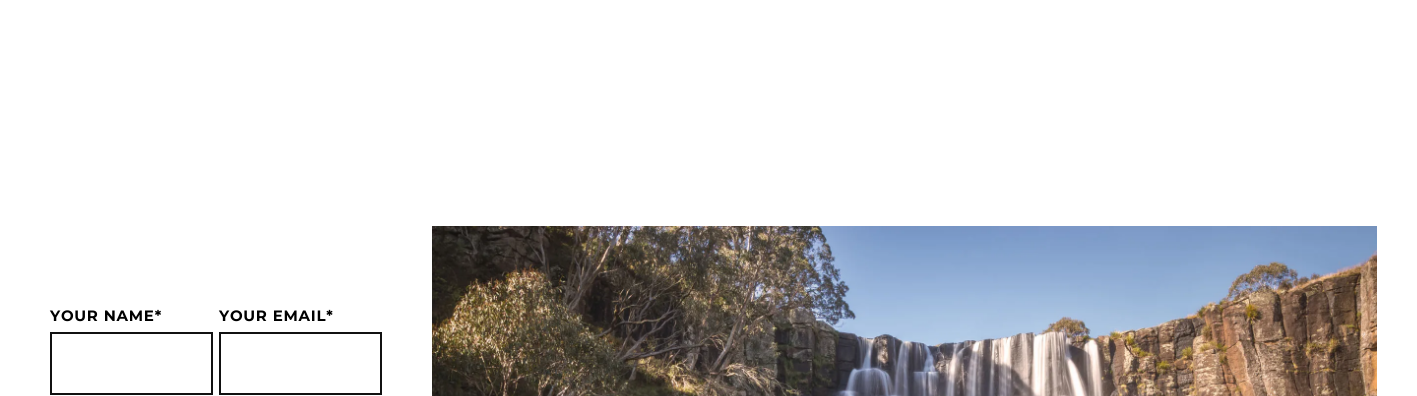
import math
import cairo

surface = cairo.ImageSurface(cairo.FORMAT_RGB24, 1417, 396)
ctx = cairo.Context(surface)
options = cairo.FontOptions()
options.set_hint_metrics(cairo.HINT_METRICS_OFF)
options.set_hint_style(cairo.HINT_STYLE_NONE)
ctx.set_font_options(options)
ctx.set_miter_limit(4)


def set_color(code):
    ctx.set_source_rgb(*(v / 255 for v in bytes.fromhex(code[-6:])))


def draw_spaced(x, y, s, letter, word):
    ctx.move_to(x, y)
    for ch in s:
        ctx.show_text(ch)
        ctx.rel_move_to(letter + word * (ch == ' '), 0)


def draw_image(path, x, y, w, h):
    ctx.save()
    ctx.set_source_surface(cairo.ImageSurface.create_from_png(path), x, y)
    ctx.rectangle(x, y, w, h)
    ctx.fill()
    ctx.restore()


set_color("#ffffff")
ctx.paint()
ctx.select_font_face("Montserrat", cairo.FONT_SLANT_NORMAL, cairo.FONT_WEIGHT_BOLD)
ctx.set_font_size(15)
set_color("#000000")
draw_spaced(50, 321, "YOUR NAME*", 0.75, 0)
ctx.rectangle(51, 333, 161, 61)
set_color("#111111")
ctx.stroke()
set_color("#000000")
draw_spaced(219, 321, "YOUR EMAIL*", 0.75, 0)
ctx.rectangle(220, 333, 161, 61)
set_color("#111111")
ctx.stroke()
draw_image("assets/img1.png", 432, 226, 945, 170)
surface.write_to_png("output.png")
